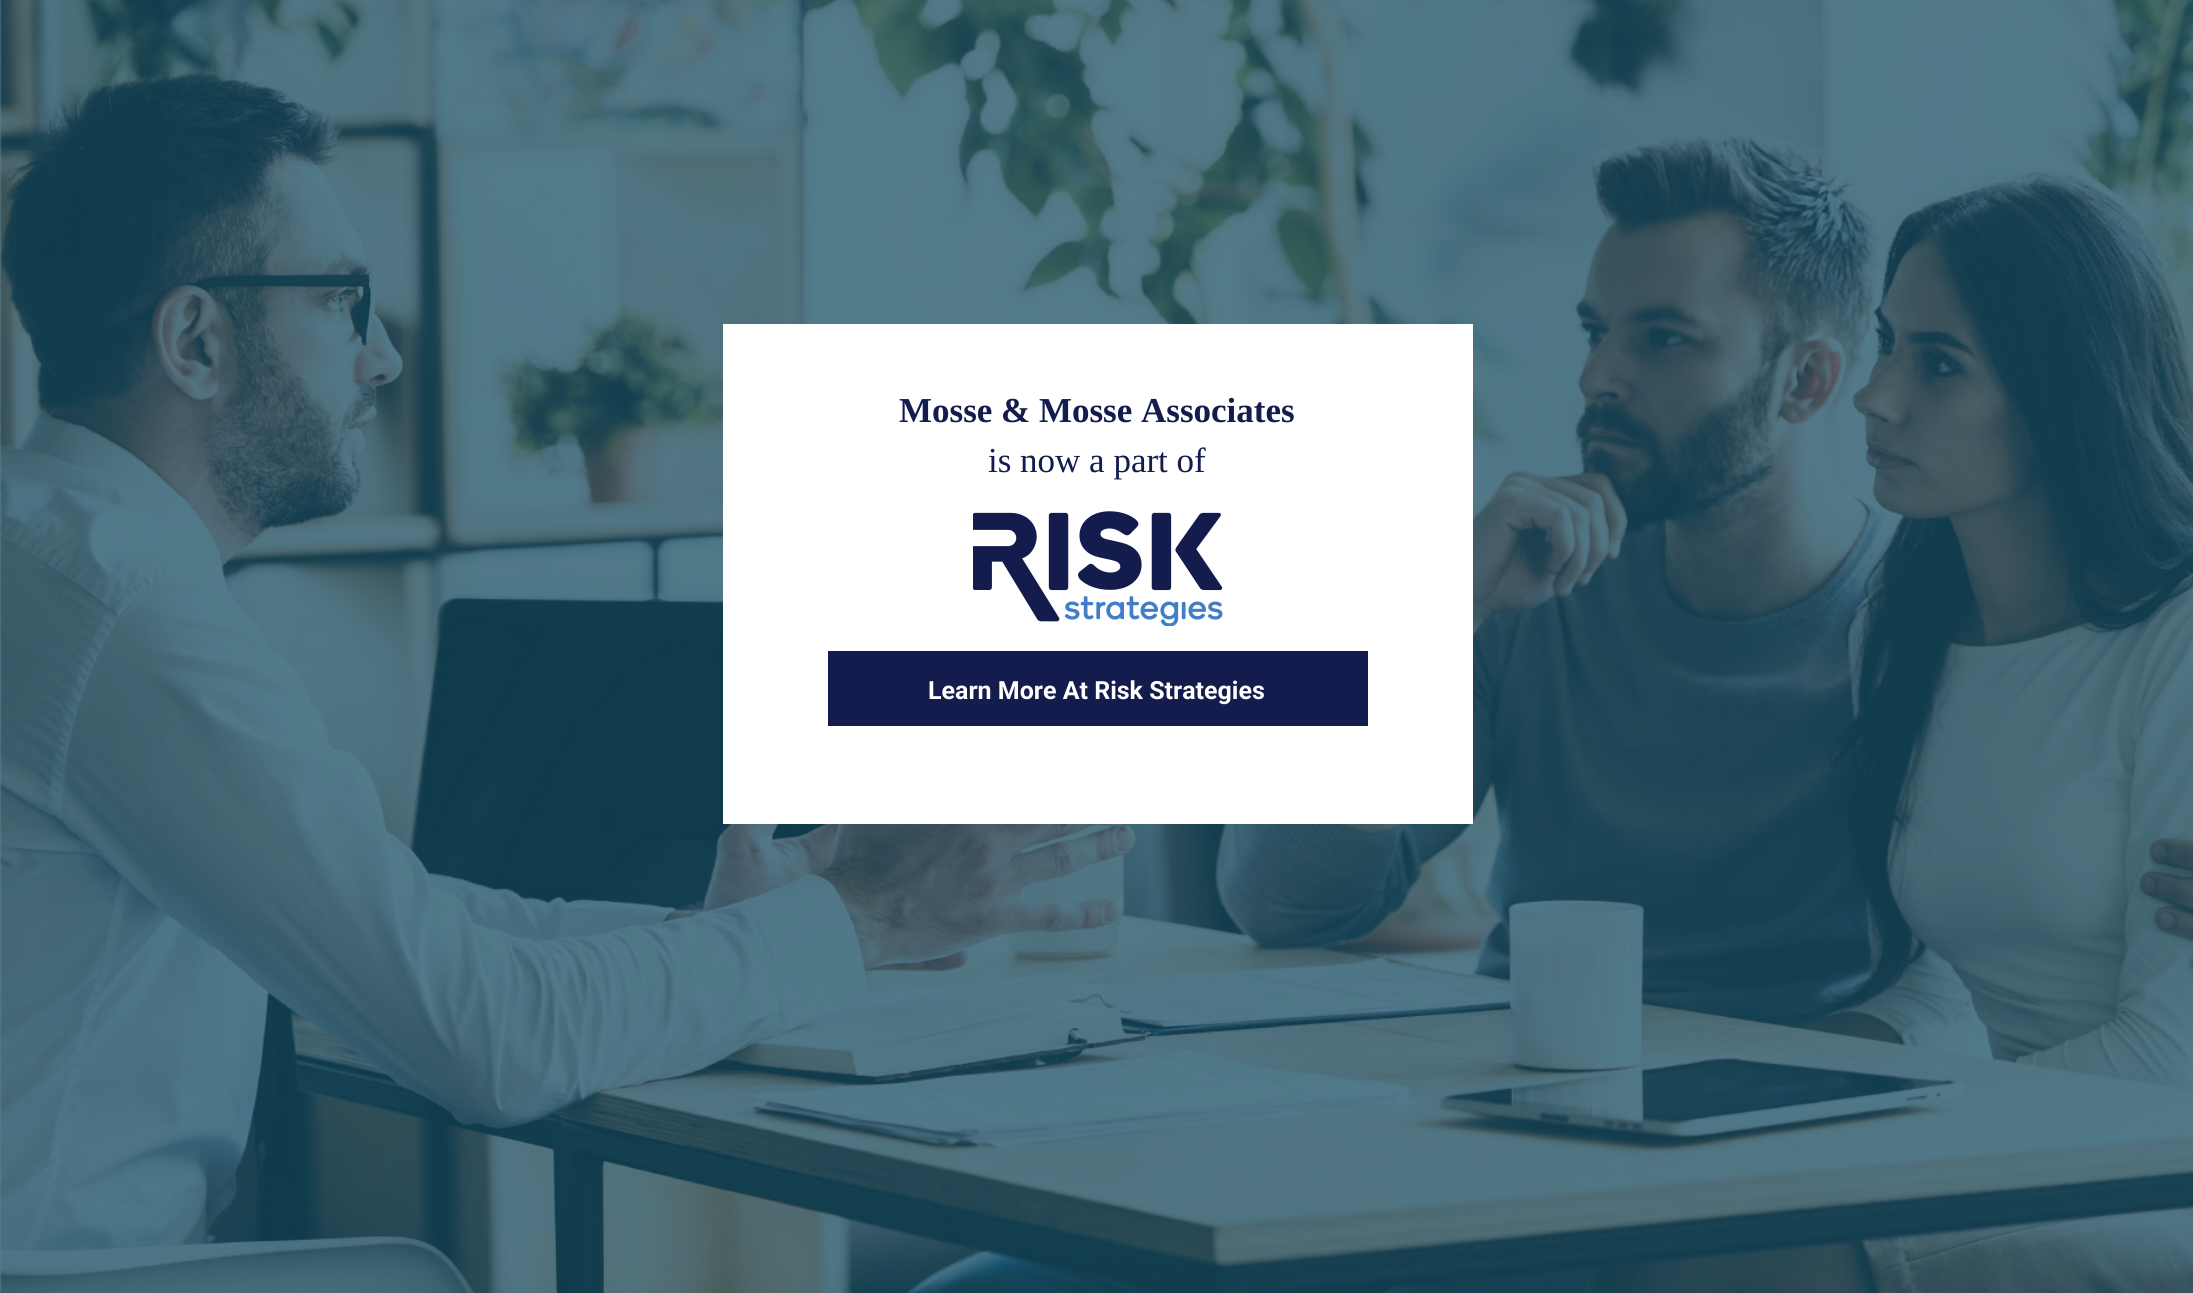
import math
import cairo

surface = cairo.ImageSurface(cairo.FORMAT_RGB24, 2193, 1293)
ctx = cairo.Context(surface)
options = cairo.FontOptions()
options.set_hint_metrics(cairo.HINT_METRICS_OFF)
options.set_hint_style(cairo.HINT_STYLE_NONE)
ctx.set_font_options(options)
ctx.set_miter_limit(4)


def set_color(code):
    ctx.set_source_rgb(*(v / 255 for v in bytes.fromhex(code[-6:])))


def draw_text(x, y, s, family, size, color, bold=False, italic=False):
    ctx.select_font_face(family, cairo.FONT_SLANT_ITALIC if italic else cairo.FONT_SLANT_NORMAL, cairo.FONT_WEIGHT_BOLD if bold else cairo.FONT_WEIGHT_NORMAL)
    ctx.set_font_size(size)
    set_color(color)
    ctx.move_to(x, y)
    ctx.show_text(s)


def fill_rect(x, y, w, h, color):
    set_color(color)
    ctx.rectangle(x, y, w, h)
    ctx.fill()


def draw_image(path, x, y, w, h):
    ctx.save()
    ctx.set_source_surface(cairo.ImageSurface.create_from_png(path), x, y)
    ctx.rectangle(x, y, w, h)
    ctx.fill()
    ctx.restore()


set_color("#ffffff")
ctx.paint()
draw_image("assets/img1.png", 0, 0, 2193, 1293)
fill_rect(723, 324, 750, 500, "#ffffff")
draw_text(899, 422, "Mosse & Mosse Associates", "Liberation Serif", 35, "#141b4d", bold=True)
draw_text(988, 472, "is now a part of", "Liberation Serif", 35, "#141b4d")
draw_image("assets/img2.png", 973, 511, 250, 115)
fill_rect(828, 651, 540, 75, "#141b4d")
draw_text(928, 699, "Learn More At Risk Strategies", "Roboto", 25, "#ffffff", bold=True)
surface.write_to_png("output.png")
